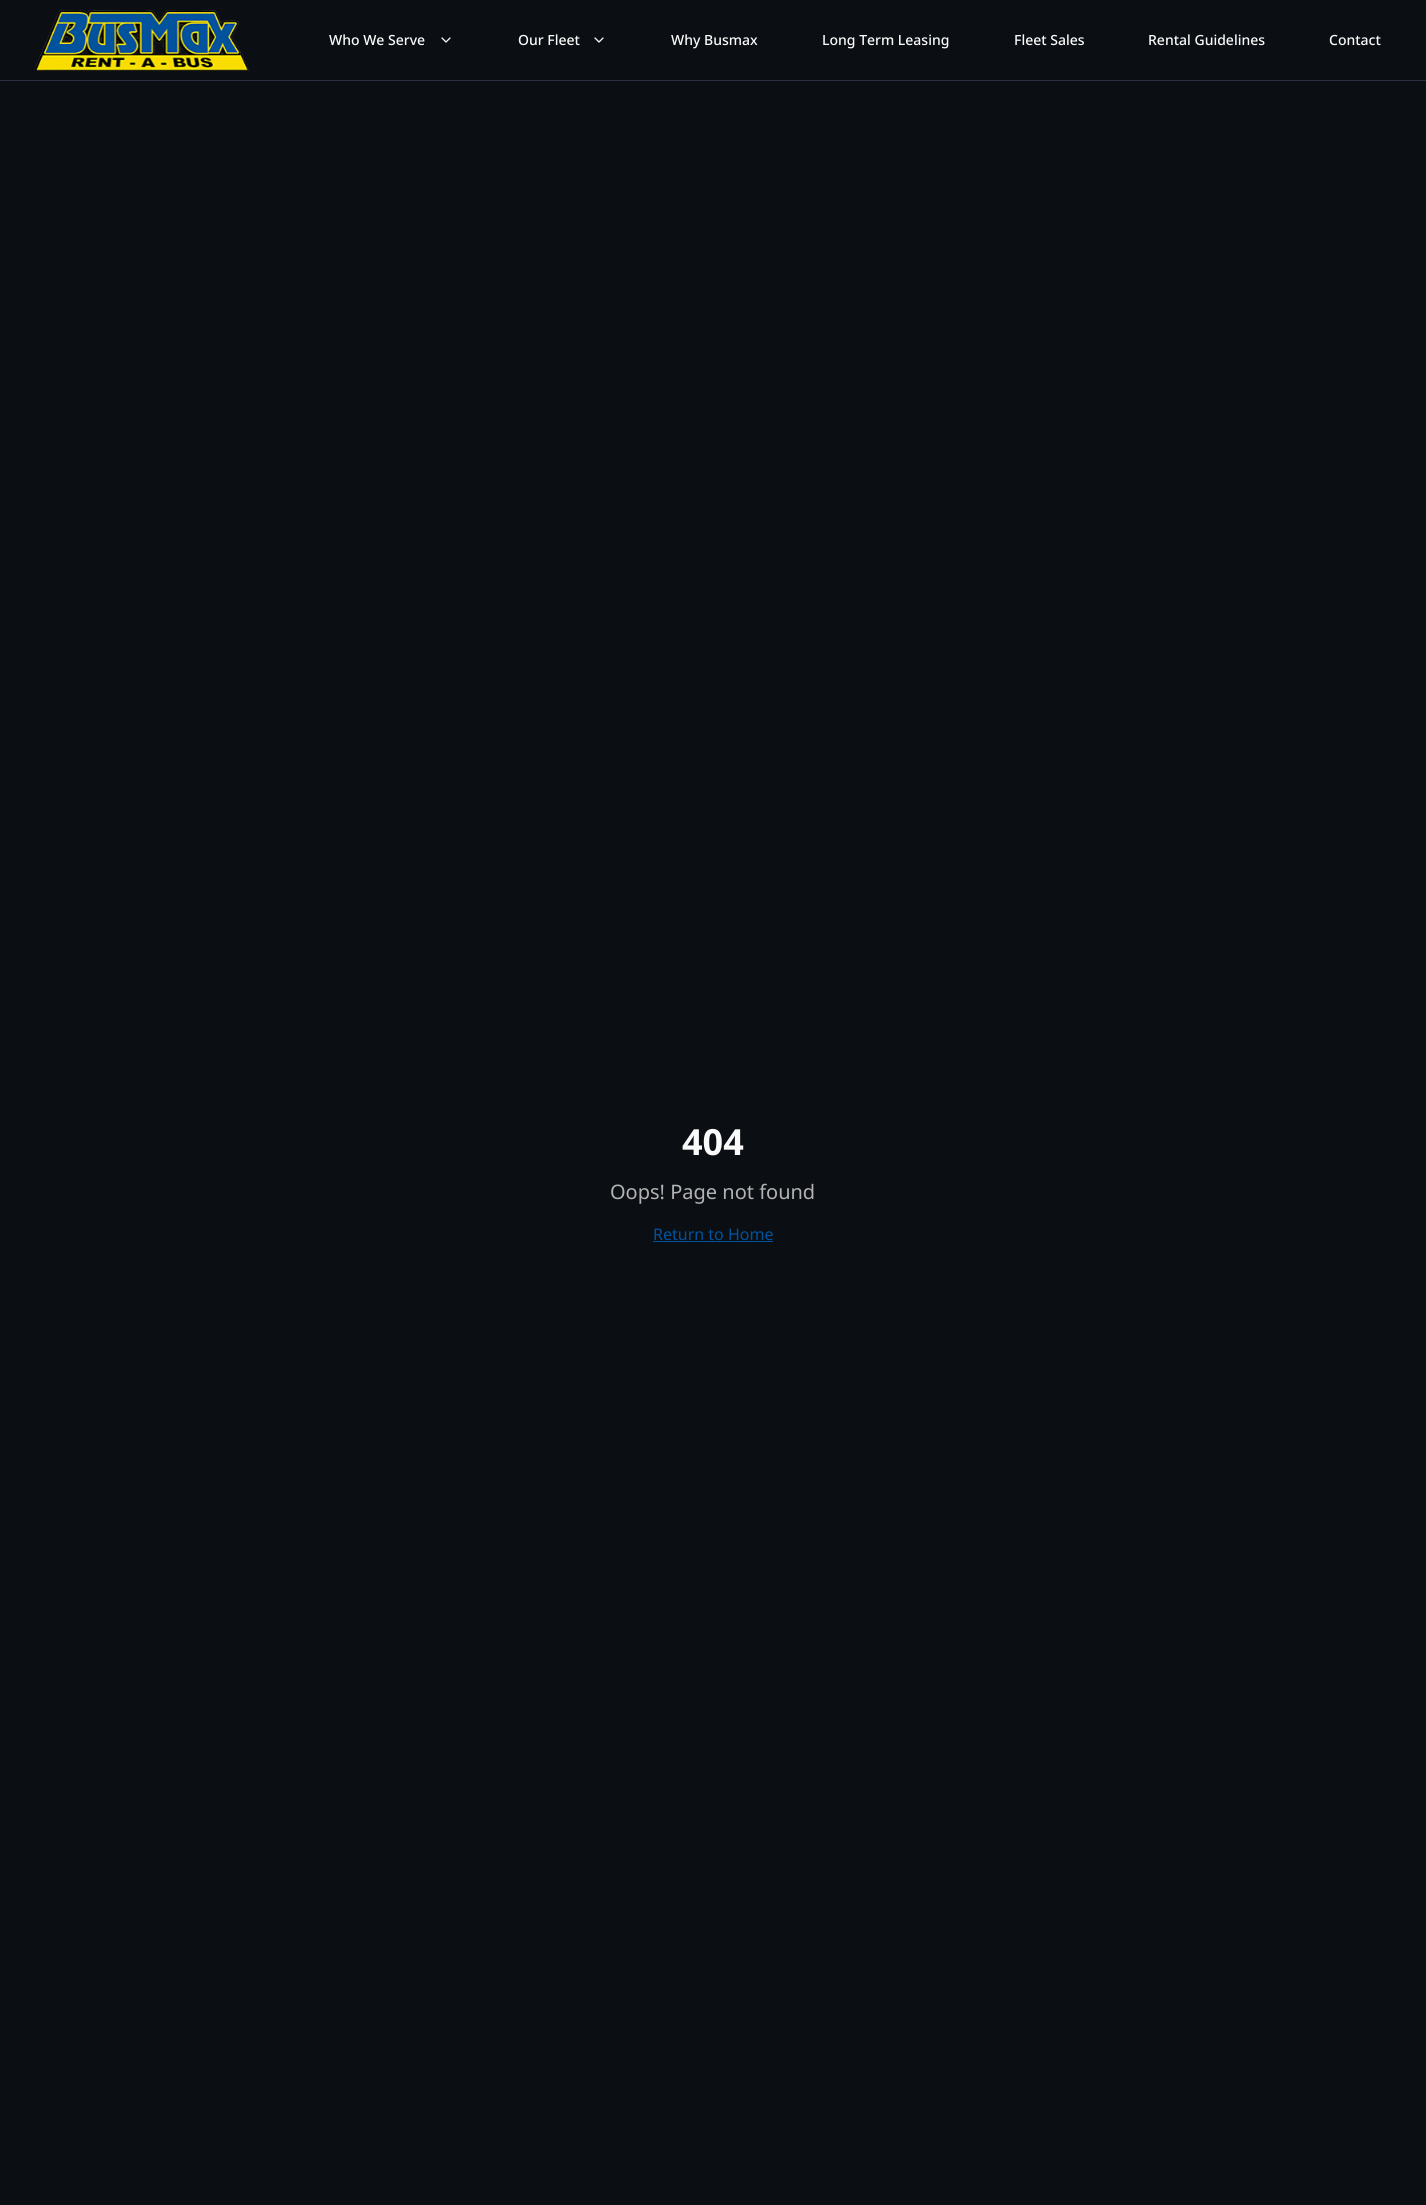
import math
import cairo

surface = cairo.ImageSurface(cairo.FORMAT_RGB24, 1426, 2205)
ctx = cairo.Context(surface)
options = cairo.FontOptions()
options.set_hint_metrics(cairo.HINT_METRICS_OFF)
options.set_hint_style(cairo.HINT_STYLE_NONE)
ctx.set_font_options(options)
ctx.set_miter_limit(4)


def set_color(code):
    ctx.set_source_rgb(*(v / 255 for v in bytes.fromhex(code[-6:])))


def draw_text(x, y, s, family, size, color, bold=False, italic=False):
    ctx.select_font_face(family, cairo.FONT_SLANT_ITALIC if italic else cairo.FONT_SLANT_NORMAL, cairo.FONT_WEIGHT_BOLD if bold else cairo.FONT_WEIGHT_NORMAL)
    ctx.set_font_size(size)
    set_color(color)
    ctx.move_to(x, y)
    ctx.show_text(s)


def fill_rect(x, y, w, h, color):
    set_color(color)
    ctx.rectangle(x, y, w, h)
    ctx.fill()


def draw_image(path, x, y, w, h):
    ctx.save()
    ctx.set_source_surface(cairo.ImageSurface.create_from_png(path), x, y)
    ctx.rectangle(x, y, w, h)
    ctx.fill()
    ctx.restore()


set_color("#0b0e13")
ctx.paint()
fill_rect(0, 80, 1426, 1, "#29303d")
draw_image("assets/img1.png", 34, 10, 215, 61)
draw_text(329, 45, "Who We Serve", "Noto Sans Medium", 14, "#fafafa")
ctx.new_path()
ctx.move_to(442, 38)
ctx.line_to(446, 42)
ctx.line_to(450, 38)
ctx.set_line_width(1.3)
ctx.set_line_cap(cairo.LINE_CAP_ROUND)
ctx.set_line_join(cairo.LINE_JOIN_ROUND)
ctx.stroke()
draw_text(518, 45, "Our Fleet", "Noto Sans Medium", 14, "#fafafa")
ctx.new_path()
ctx.move_to(595, 38)
ctx.line_to(599, 42)
ctx.line_to(603, 38)
ctx.stroke()
draw_text(671, 45, "Why Busmax", "Noto Sans Medium", 14, "#fafafa")
draw_text(822, 45, "Long Term Leasing", "Noto Sans Medium", 14, "#fafafa")
draw_text(1014, 45, "Fleet Sales", "Noto Sans Medium", 14, "#fafafa")
draw_text(1148, 45, "Rental Guidelines", "Noto Sans Medium", 14, "#fafafa")
draw_text(1329, 45, "Contact", "Noto Sans Medium", 14, "#fafafa")
draw_text(682, 1155, "404", "Noto Sans", 36, "#fafafa", bold=True)
draw_text(610, 1199, "Oops! Page not found", "Noto Sans", 20, "#b3b3b3")
draw_text(653, 1240, "Return to Home", "Noto Sans", 16, "#00529e")
fill_rect(653, 1241, 120, 1, "#00529e")
surface.write_to_png("output.png")
